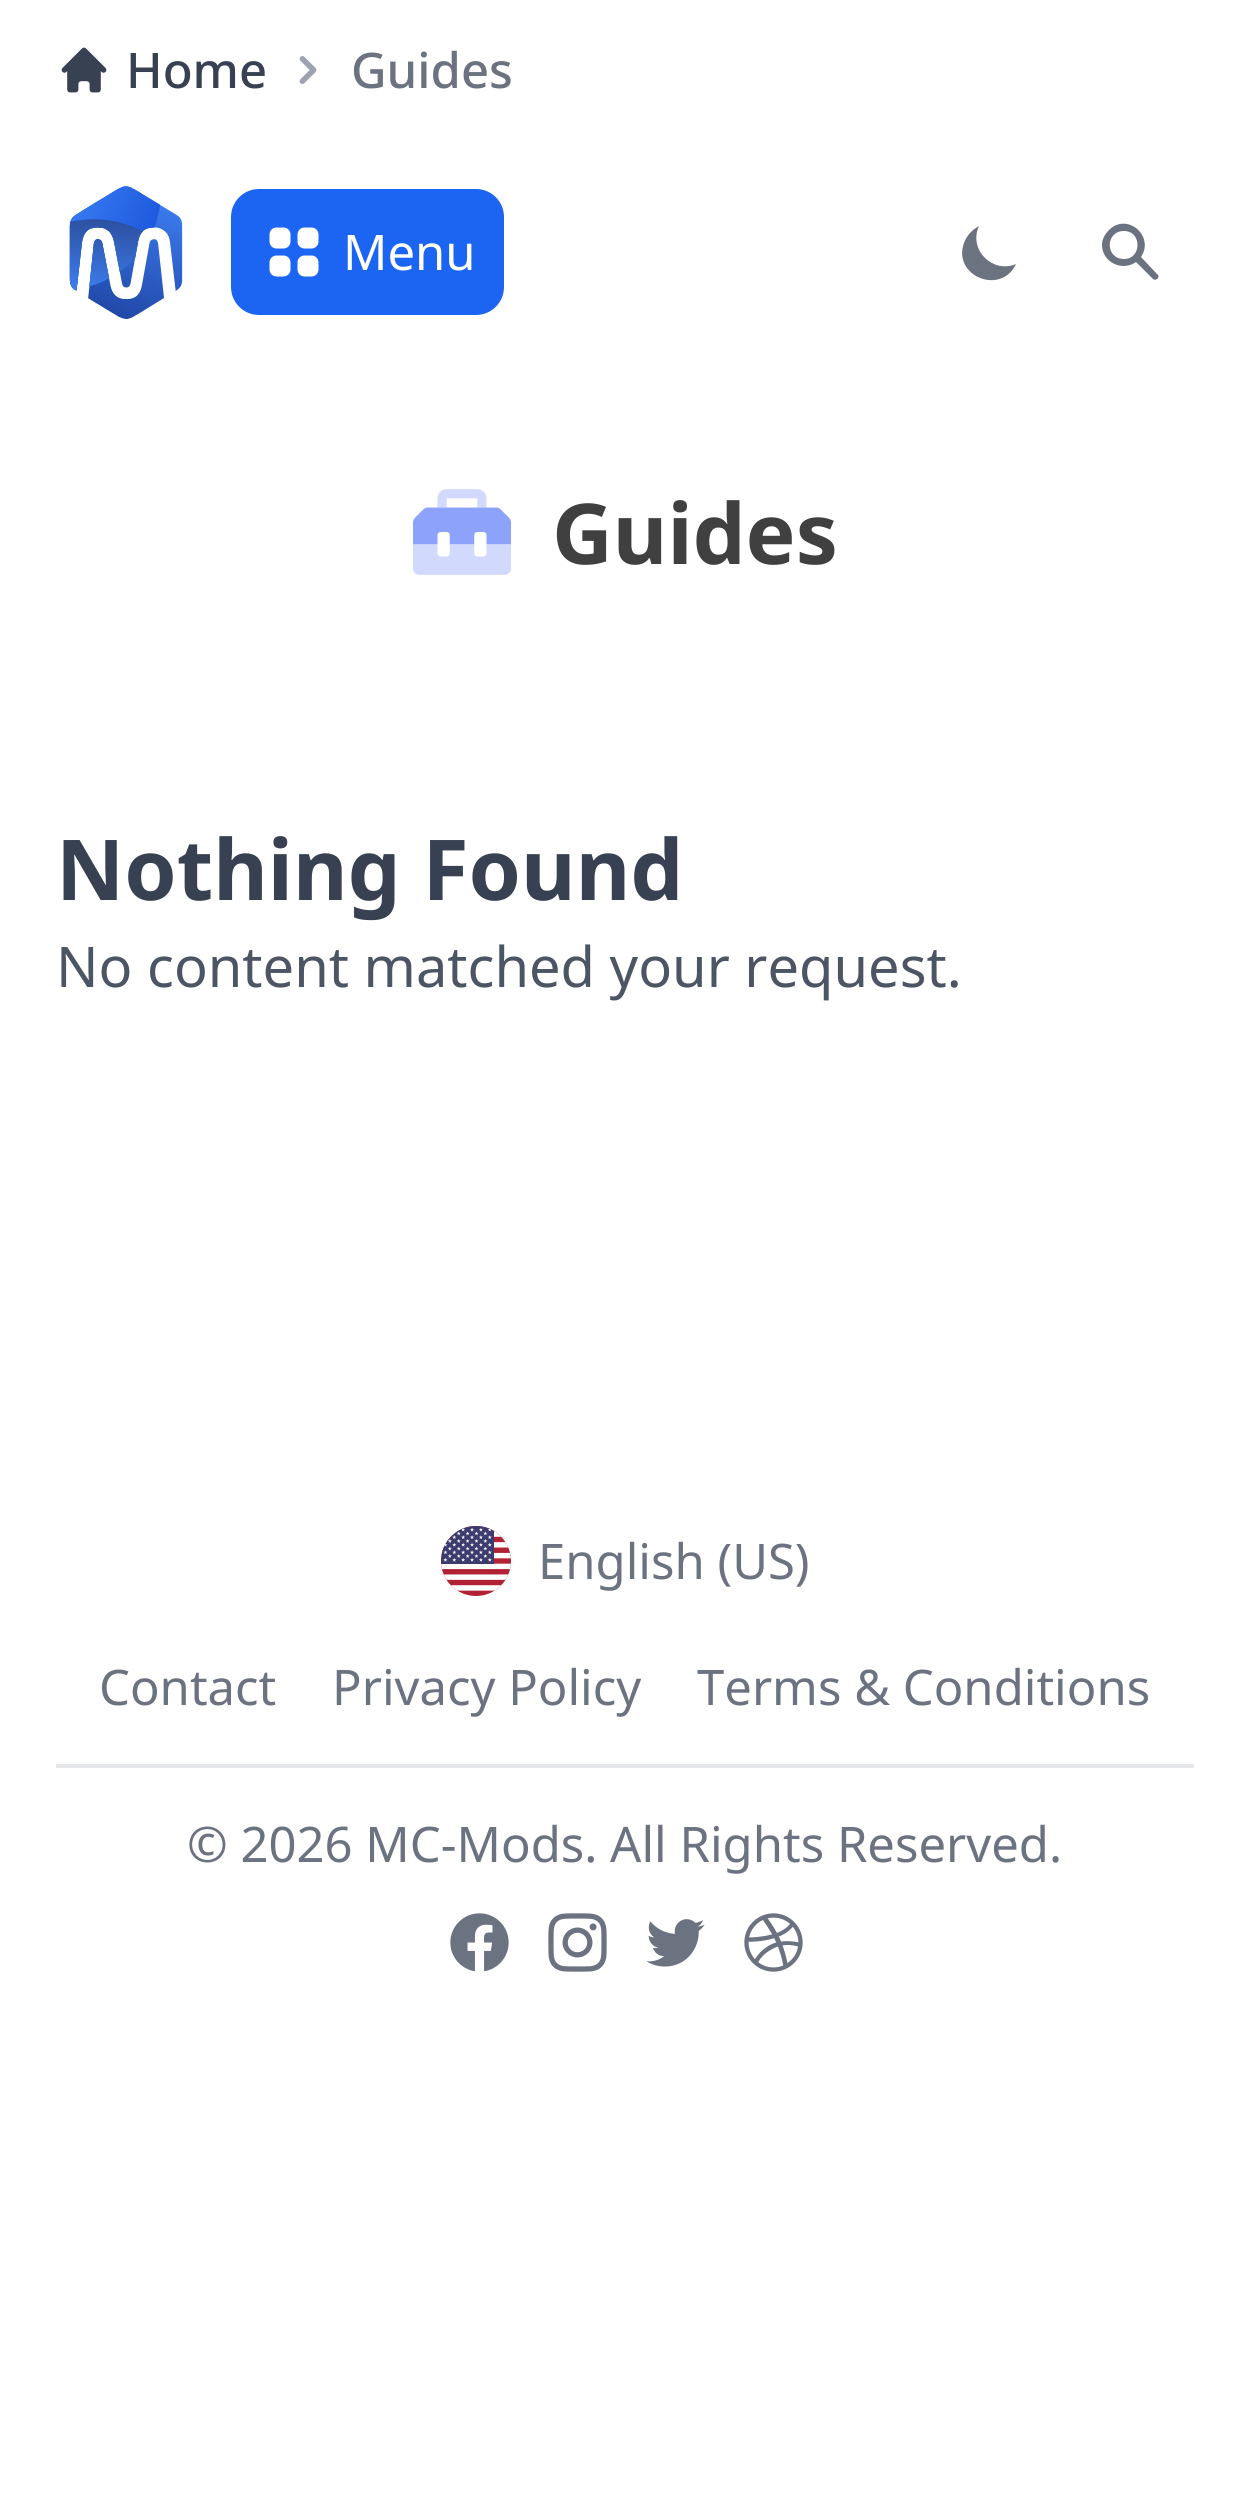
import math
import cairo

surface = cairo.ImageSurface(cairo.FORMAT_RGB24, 1248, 2507)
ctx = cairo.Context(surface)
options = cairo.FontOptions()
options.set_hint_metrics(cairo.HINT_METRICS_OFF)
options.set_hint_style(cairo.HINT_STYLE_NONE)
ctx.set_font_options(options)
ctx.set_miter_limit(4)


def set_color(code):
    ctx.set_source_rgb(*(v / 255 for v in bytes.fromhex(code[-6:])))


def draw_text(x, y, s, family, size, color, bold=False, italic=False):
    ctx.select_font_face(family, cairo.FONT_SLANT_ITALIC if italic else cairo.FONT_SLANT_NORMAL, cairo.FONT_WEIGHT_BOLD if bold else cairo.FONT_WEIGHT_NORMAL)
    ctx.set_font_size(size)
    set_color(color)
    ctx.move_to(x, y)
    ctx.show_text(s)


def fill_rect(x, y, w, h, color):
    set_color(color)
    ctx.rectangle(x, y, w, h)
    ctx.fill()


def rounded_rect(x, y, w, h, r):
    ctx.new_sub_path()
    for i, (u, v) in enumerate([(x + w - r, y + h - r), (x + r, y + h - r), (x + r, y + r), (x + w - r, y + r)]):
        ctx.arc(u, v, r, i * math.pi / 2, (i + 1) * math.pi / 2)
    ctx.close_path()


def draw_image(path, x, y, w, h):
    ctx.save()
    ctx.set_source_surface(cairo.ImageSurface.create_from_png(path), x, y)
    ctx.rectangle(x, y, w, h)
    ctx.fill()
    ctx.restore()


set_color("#ffffff")
ctx.paint()
draw_image("assets/img1.png", 61, 47, 46, 46)
draw_text(126, 88, "Home", "Noto Sans Medium", 49, "#374151")
draw_image("assets/img2.png", 299, 56, 18, 28)
draw_text(351, 88, "Guides", "Noto Sans Medium", 49, "#6b7280")
draw_image("assets/img3.png", 69, 186, 114, 133)
set_color("#1c64f2")
rounded_rect(231, 189, 273, 126, 28)
ctx.fill()
draw_image("assets/img4.png", 269, 227, 50, 50)
draw_text(343, 270, "Menu", "Noto Sans", 49, "#ffffff")
set_color("#6b7280")
ctx.new_path()
ctx.move_to(1016, 264)
ctx.curve_to(993, 274, 968, 250, 979, 226)
ctx.curve_to(972, 230, 967, 235, 964, 243)
ctx.curve_to(952, 276, 1001, 296, 1016, 264)
ctx.close_path()
ctx.fill()
ctx.set_fill_rule(cairo.FILL_RULE_EVEN_ODD)
ctx.new_path()
ctx.move_to(1124, 231)
ctx.curve_to(1105, 231, 1105, 259, 1124, 259)
ctx.curve_to(1142, 259, 1142, 231, 1124, 231)
ctx.close_path()
ctx.move_to(1102, 245)
ctx.curve_to(1102, 239, 1105, 234, 1109, 230)
ctx.curve_to(1127, 212, 1155, 236, 1141, 257)
ctx.line_to(1157, 274)
ctx.curve_to(1159, 275, 1159, 278, 1157, 279)
ctx.curve_to(1156, 280, 1154, 280, 1153, 279)
ctx.line_to(1136, 262)
ctx.curve_to(1122, 272, 1102, 262, 1102, 245)
ctx.close_path()
ctx.fill()
draw_image("assets/img5.png", 413, 489, 98, 86)
draw_text(552, 564, "Guides", "Noto Sans", 84, "#404040", bold=True)
draw_text(56, 900, "Nothing Found", "Noto Sans", 84, "#374151", bold=True)
draw_text(56, 987, "No content matched your request.", "Noto Sans", 56, "#4b5563")
draw_image("assets/img6.png", 441, 1526, 70, 70)
draw_text(538, 1579, "English (US)", "Noto Sans", 49, "#6b7280")
draw_text(99, 1705, "Contact", "Noto Sans", 49, "#6b7280")
draw_text(332, 1705, "Privacy Policy", "Noto Sans", 49, "#6b7280")
draw_text(697, 1705, "Terms & Conditions", "Noto Sans", 49, "#6b7280")
fill_rect(56, 1764, 1138, 4, "#e5e7eb")
draw_text(187, 1862, "© 2026 MC-Mods. All Rights Reserved.", "Noto Sans", 49, "#6b7280")
draw_image("assets/img7.png", 450, 1913, 59, 59)
draw_image("assets/img8.png", 548, 1913, 59, 59)
draw_image("assets/img9.png", 646, 1919, 59, 48)
draw_image("assets/img10.png", 744, 1913, 59, 59)
surface.write_to_png("output.png")
